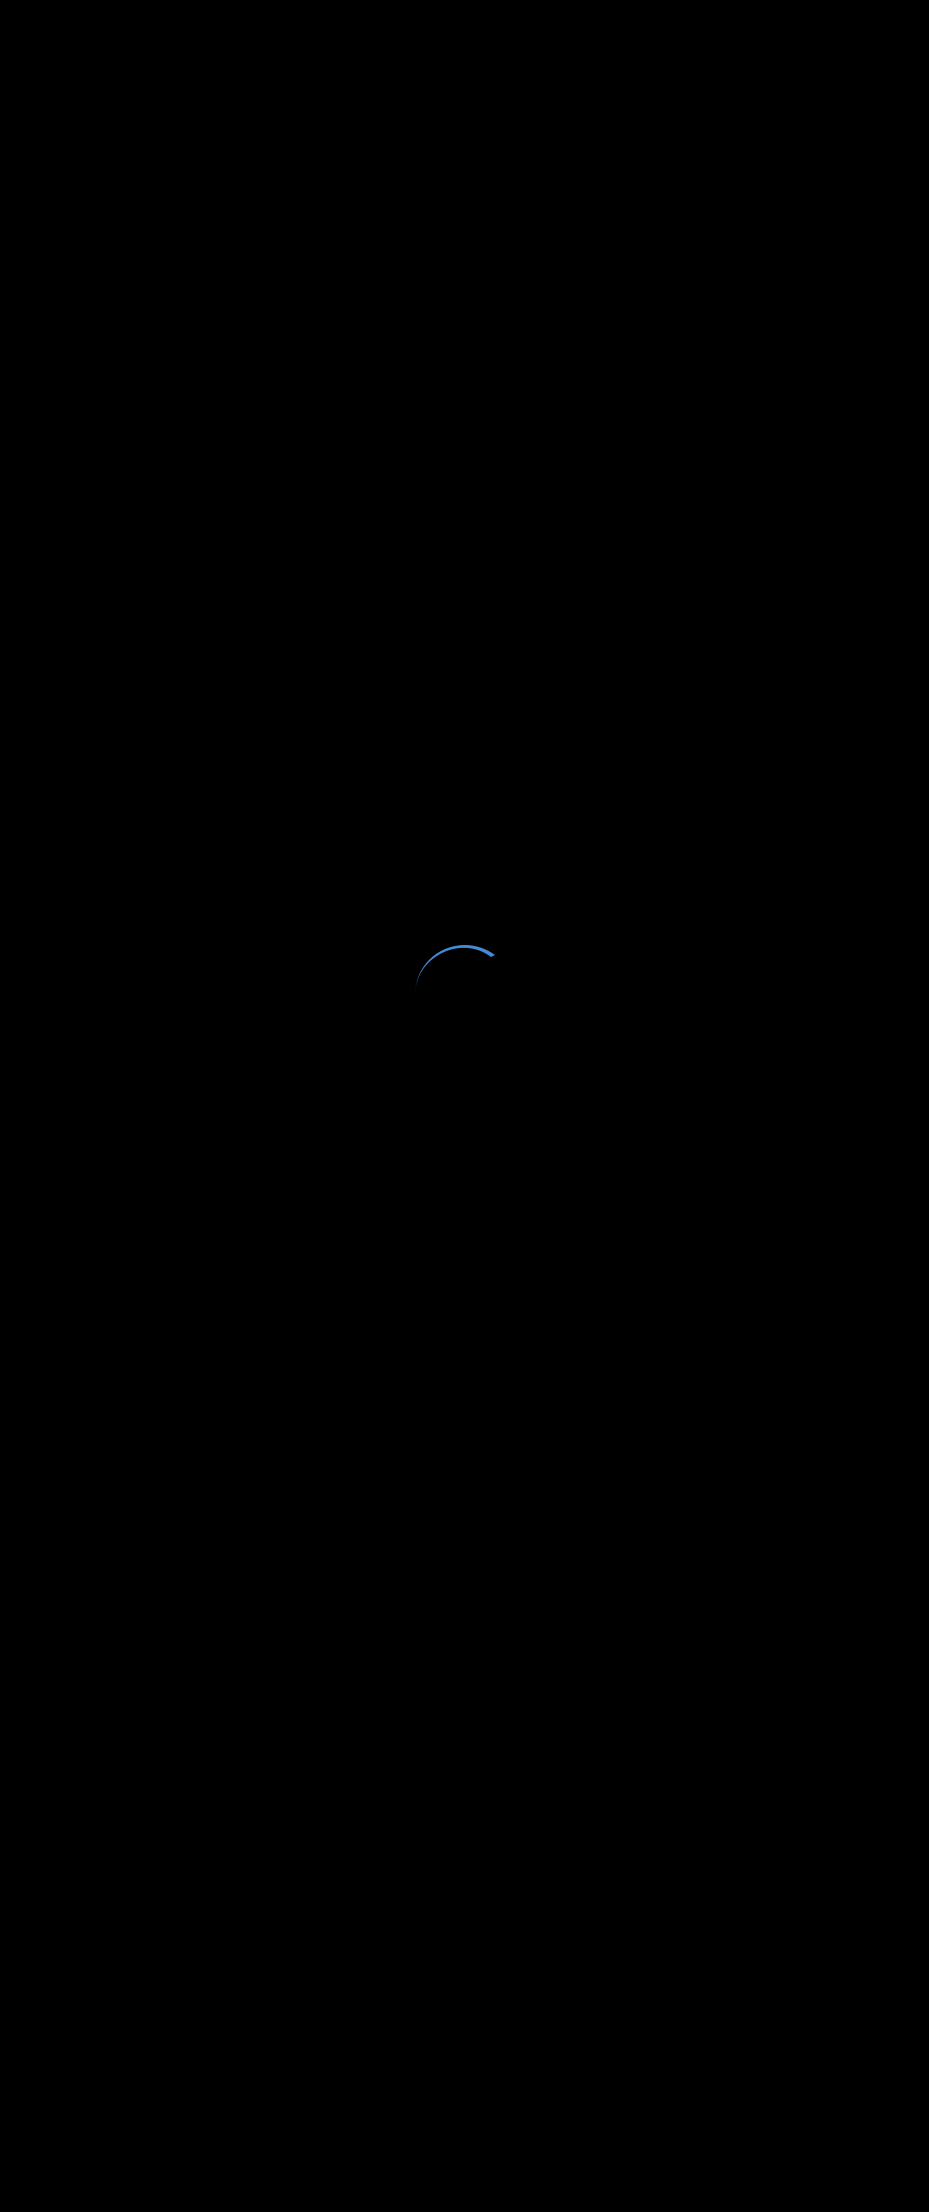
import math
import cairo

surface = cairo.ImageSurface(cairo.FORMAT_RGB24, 929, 2212)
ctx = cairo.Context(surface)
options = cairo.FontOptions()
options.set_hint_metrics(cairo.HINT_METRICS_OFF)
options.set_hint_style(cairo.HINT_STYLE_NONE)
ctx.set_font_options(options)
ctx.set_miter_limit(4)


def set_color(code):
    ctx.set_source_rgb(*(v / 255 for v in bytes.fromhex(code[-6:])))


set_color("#000000")
ctx.paint()
set_color("#448bd6")
ctx.new_path()
ctx.move_to(465, 945)
ctx.curve_to(437, 945, 415, 967, 415, 995)
ctx.curve_to(415, 957, 461, 934, 491, 957)
ctx.line_to(495, 955)
ctx.curve_to(487, 949, 476, 945, 465, 945)
ctx.close_path()
ctx.fill()
surface.write_to_png("output.png")
